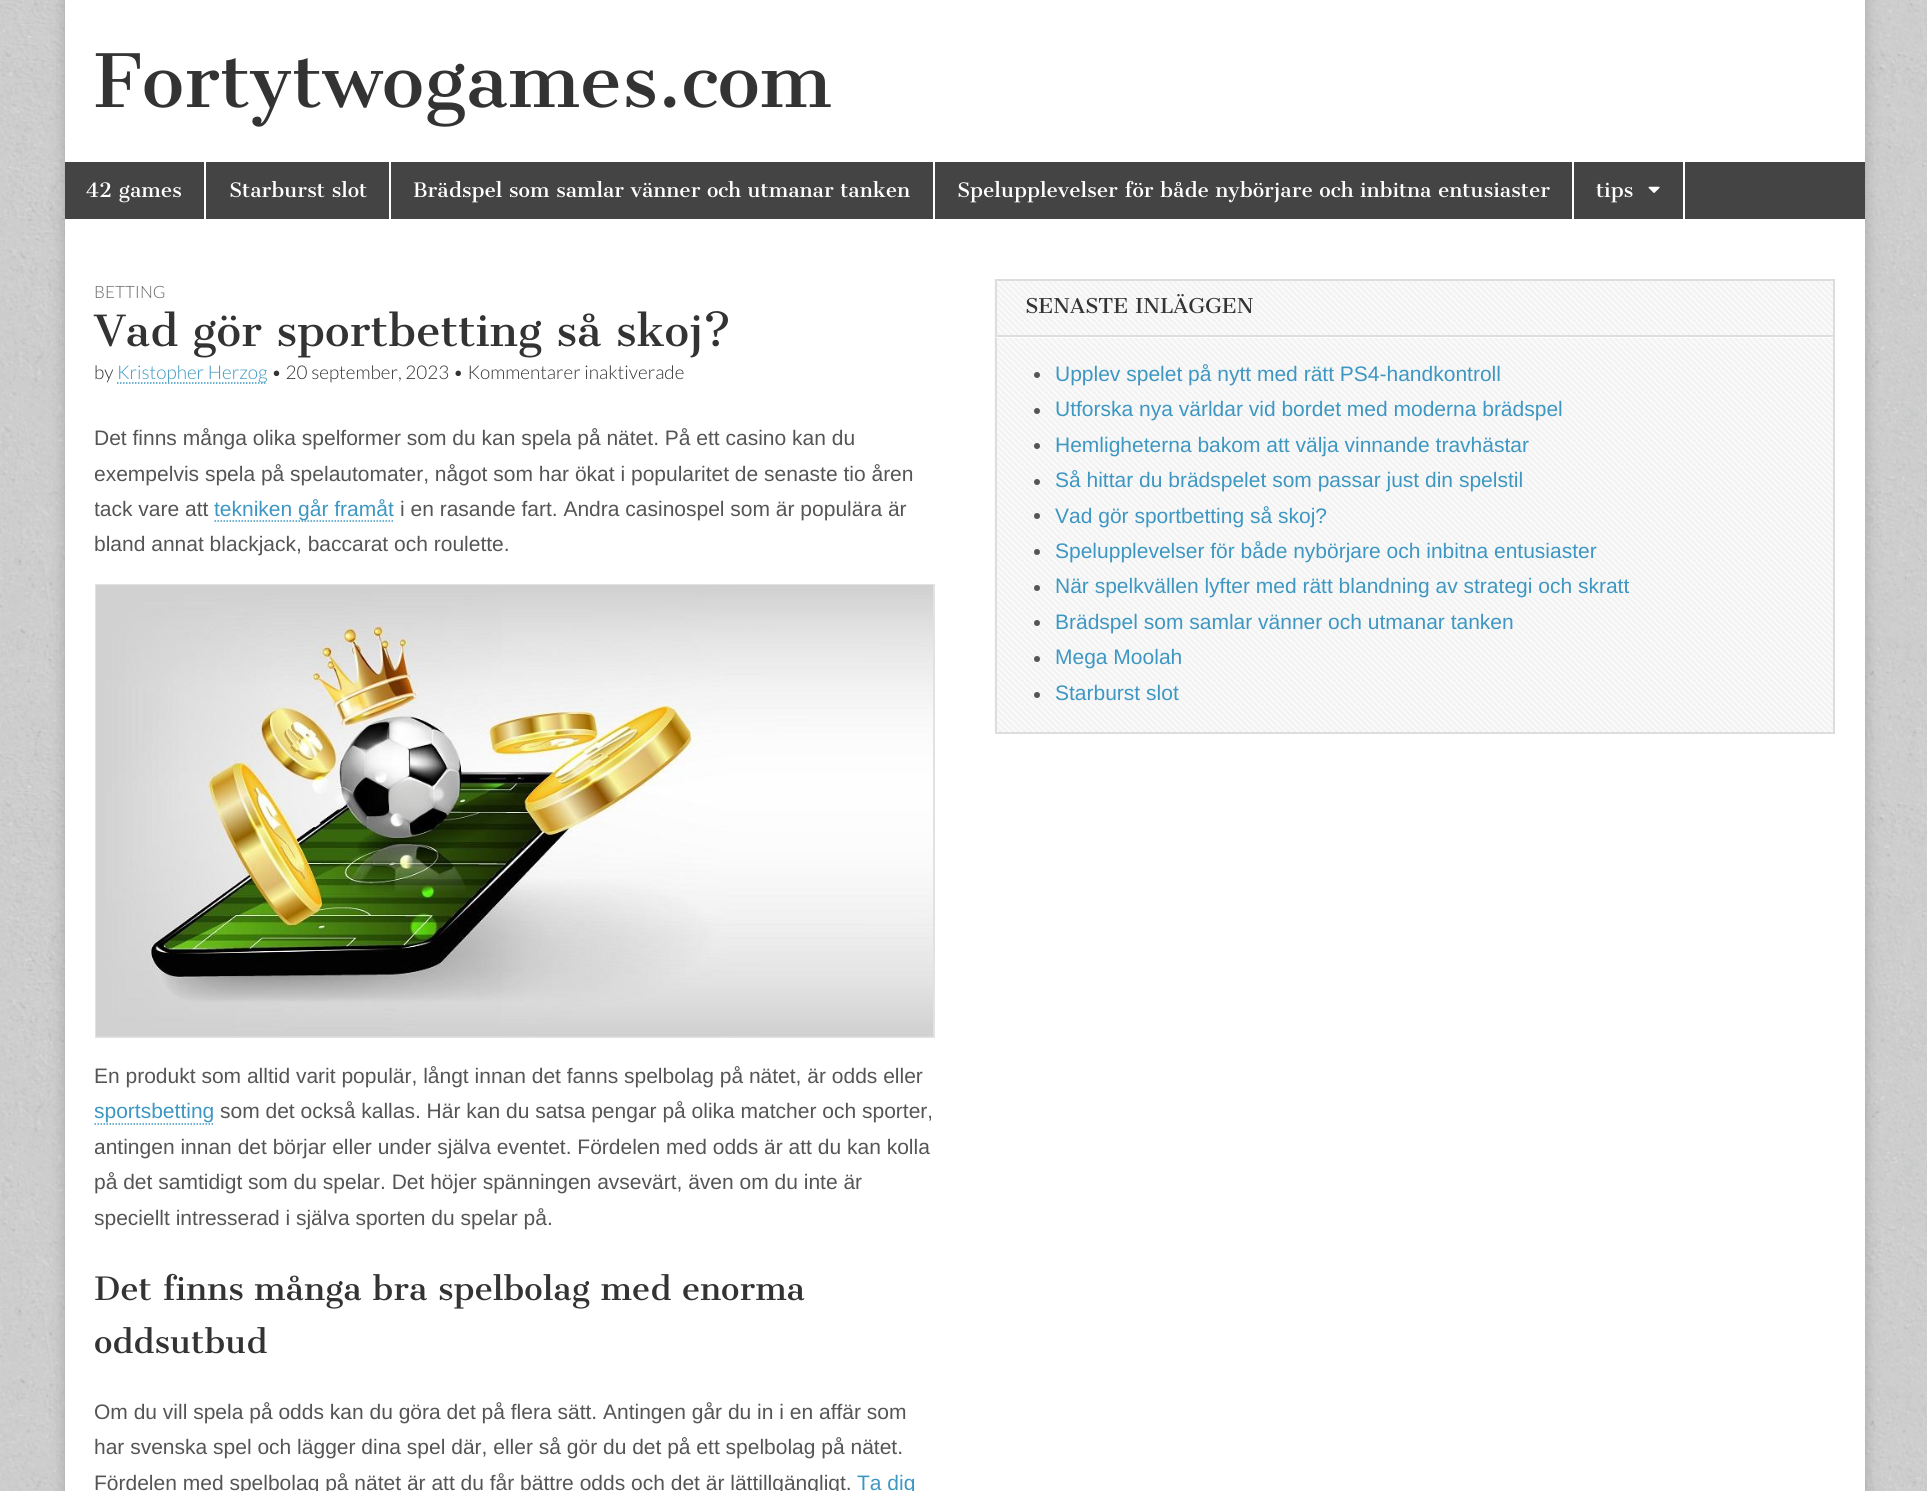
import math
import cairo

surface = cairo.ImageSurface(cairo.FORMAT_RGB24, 1927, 1491)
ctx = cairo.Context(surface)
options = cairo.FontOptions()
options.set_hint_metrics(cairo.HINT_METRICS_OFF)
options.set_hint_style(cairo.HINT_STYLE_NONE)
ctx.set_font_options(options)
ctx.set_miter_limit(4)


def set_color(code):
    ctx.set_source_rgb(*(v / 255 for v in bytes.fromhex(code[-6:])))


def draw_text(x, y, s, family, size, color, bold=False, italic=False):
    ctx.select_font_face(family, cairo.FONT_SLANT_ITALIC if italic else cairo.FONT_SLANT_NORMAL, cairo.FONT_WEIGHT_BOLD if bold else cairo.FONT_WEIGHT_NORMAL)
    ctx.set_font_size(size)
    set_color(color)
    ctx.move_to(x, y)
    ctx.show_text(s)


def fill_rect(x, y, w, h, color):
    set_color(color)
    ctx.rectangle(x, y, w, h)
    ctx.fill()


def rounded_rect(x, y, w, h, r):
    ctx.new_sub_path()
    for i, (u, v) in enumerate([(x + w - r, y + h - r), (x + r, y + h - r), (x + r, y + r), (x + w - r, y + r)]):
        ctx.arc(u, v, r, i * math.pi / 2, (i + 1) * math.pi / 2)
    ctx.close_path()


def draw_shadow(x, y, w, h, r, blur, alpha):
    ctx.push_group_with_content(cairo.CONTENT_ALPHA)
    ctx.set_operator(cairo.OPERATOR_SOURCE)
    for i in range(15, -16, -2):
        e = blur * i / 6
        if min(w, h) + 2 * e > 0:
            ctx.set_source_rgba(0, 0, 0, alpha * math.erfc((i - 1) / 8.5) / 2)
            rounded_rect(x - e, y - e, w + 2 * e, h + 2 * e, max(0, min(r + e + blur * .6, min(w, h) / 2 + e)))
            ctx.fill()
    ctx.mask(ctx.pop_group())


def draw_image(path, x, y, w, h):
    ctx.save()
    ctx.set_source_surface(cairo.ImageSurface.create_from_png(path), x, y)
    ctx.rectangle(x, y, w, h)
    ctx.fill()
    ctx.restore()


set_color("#ffffff")
ctx.paint()
draw_image("assets/img1.png", 0, 0, 1927, 1491)
set_color("#000000")
draw_shadow(65, 0, 1800, 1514, 0, 7.5, 0.2)
fill_rect(65, 0, 1800, 1491, "#ffffff")
draw_text(94, 107, "Fortytwogames.com", "Cantata One", 72, "#333333")
fill_rect(65, 162, 1800, 57, "#444444")
fill_rect(204, 162, 2, 57, "#ffffff")
draw_text(86, 197, "42 games", "Cantata One", 19.5, "#ffffff")
fill_rect(389, 162, 2, 57, "#ffffff")
draw_text(229, 197, "Starburst slot", "Cantata One", 19.5, "#ffffff")
fill_rect(933, 162, 2, 57, "#ffffff")
draw_text(413, 197, "Brädspel som samlar vänner och utmanar tanken", "Cantata One", 19.5, "#ffffff")
fill_rect(1572, 162, 2, 57, "#ffffff")
draw_text(957, 197, "Spelupplevelser för både nybörjare och inbitna entusiaster", "Cantata One", 19.5, "#ffffff")
fill_rect(1683, 162, 2, 57, "#ffffff")
draw_text(1596, 197, "tips", "Cantata One", 19.5, "#ffffff")
draw_image("assets/img2.png", 1648, 186, 12, 7)
draw_text(94, 298, "BETTING", "Lato Light", 17, "#666666")
draw_text(94, 346, "Vad gör sportbetting så skoj?", "Cantata One", 42, "#333333")
draw_text(94, 379, "by", "Lato Light", 18.9, "#333333")
ctx.new_path()
ctx.move_to(117, 383)
ctx.line_to(267, 383)
set_color("#3d97c2")
ctx.set_line_width(1.5)
ctx.set_dash([1.5, 1.5])
ctx.stroke()
draw_text(117, 379, "Kristopher Herzog", "Lato Light", 18.9, "#3d97c2")
draw_text(271, 379, "• 20 september, 2023 • Kommentarer inaktiverade", "Lato Light", 18.9, "#333333")
draw_text(94, 445, "Det finns många olika spelformer som du kan spela på nätet. På ett casino kan du", "Liberation Sans", 21, "#555555")
ctx.save()
ctx.rectangle(95, 401, 840, 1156)
ctx.clip()
draw_text(94, 481, "exempelvis spela på spelautomater, något som har ökat i popularitet de senaste tio åren", "Liberation Sans", 21, "#555555")
draw_text(94, 516, "tack vare att", "Liberation Sans", 21, "#555555")
ctx.restore()
ctx.new_path()
ctx.move_to(214.5, 521)
ctx.line_to(394.5, 521)
set_color("#3d97c2")
ctx.stroke()
draw_text(214, 516, "tekniken går framåt", "Liberation Sans", 21, "#3d97c2")
draw_text(400, 516, "i en rasande fart. Andra casinospel som är populära är", "Liberation Sans", 21, "#555555")
draw_text(94, 551, "bland annat blackjack, baccarat och roulette.", "Liberation Sans", 21, "#555555")
ctx.rectangle(96, 585, 838, 452)
set_color("#e2e2e2")
ctx.set_line_width(2)
ctx.set_dash([])
ctx.stroke()
draw_image("assets/img3.png", 96, 585, 837, 452)
draw_text(94, 1083, "En produkt som alltid varit populär, långt innan det fanns spelbolag på nätet, är odds eller", "Liberation Sans", 21, "#555555")
ctx.save()
ctx.rectangle(95, 401, 840, 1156)
ctx.clip()
draw_text(94, 1118, "sportsbetting", "Liberation Sans", 21, "#3d97c2")
ctx.restore()
ctx.new_path()
ctx.move_to(94.5, 1124)
ctx.line_to(214.5, 1124)
set_color("#3d97c2")
ctx.set_line_width(1.5)
ctx.set_dash([1.5, 1.5])
ctx.stroke()
draw_text(220, 1118, "som det också kallas. Här kan du satsa pengar på olika matcher och sporter,", "Liberation Sans", 21, "#555555")
ctx.save()
ctx.rectangle(95, 401, 840, 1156)
ctx.clip()
draw_text(94, 1154, "antingen innan det börjar eller under själva eventet. Fördelen med odds är att du kan kolla", "Liberation Sans", 21, "#555555")
ctx.restore()
draw_text(94, 1189, "på det samtidigt som du spelar. Det höjer spänningen avsevärt, även om du inte är", "Liberation Sans", 21, "#555555")
ctx.save()
ctx.rectangle(95, 401, 840, 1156)
ctx.clip()
draw_text(94, 1225, "speciellt intresserad i själva sporten du spelar på.", "Liberation Sans", 21, "#555555")
ctx.restore()
draw_text(94, 1300, "Det finns många bra spelbolag med enorma", "Cantata One", 31.5, "#333333")
draw_text(94, 1353, "oddsutbud", "Cantata One", 31.5, "#333333")
ctx.save()
ctx.rectangle(95, 401, 840, 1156)
ctx.clip()
draw_text(94, 1419, "Om du vill spela på odds kan du göra det på flera sätt. Antingen går du in i en affär som", "Liberation Sans", 21, "#555555")
ctx.restore()
draw_text(94, 1454, "har svenska spel och lägger dina spel där, eller så gör du det på ett spelbolag på nätet.", "Liberation Sans", 21, "#555555")
draw_text(94, 1490, "Fördelen med spelbolag på nätet är att du får bättre odds och det är lättillgängligt.", "Liberation Sans", 21, "#555555")
draw_text(857, 1490, "Ta dig", "Liberation Sans", 21, "#3d97c2")
draw_image("assets/img4.png", 994, 279, 839, 455)
ctx.rectangle(996, 280, 838, 453)
set_color("#dddddd")
ctx.set_line_width(2)
ctx.set_dash([])
ctx.stroke()
fill_rect(996, 337, 837, 1, "#ffffff")
fill_rect(996, 335, 837, 2, "#dddddd")
draw_text(1025, 313, "SENASTE INLÄGGEN", "Cantata One", 20, "#333333")
set_color("#555555")
ctx.new_path()
ctx.arc(1037, 375, 3, 0, 2 * math.pi)
ctx.fill()
draw_text(1055, 381, "Upplev spelet på nytt med rätt PS4-handkontroll", "Liberation Sans", 21, "#3d97c2")
set_color("#555555")
ctx.new_path()
ctx.arc(1037, 411, 3, 0, 2 * math.pi)
ctx.fill()
draw_text(1055, 416, "Utforska nya världar vid bordet med moderna brädspel", "Liberation Sans", 21, "#3d97c2")
set_color("#555555")
ctx.new_path()
ctx.arc(1037, 446, 3, 0, 2 * math.pi)
ctx.fill()
draw_text(1055, 452, "Hemligheterna bakom att välja vinnande travhästar", "Liberation Sans", 21, "#3d97c2")
set_color("#555555")
ctx.new_path()
ctx.arc(1037, 482, 3, 0, 2 * math.pi)
ctx.fill()
draw_text(1055, 487, "Så hittar du brädspelet som passar just din spelstil", "Liberation Sans", 21, "#3d97c2")
set_color("#555555")
ctx.new_path()
ctx.arc(1037, 516, 3, 0, 2 * math.pi)
ctx.fill()
draw_text(1055, 523, "Vad gör sportbetting så skoj?", "Liberation Sans", 21, "#3d97c2")
set_color("#555555")
ctx.new_path()
ctx.arc(1037, 552, 3, 0, 2 * math.pi)
ctx.fill()
draw_text(1055, 558, "Spelupplevelser för både nybörjare och inbitna entusiaster", "Liberation Sans", 21, "#3d97c2")
set_color("#555555")
ctx.new_path()
ctx.arc(1037, 588, 3, 0, 2 * math.pi)
ctx.fill()
draw_text(1055, 593, "När spelkvällen lyfter med rätt blandning av strategi och skratt", "Liberation Sans", 21, "#3d97c2")
set_color("#555555")
ctx.new_path()
ctx.arc(1037, 623, 3, 0, 2 * math.pi)
ctx.fill()
draw_text(1055, 629, "Brädspel som samlar vänner och utmanar tanken", "Liberation Sans", 21, "#3d97c2")
set_color("#555555")
ctx.new_path()
ctx.arc(1037, 659, 3, 0, 2 * math.pi)
ctx.fill()
draw_text(1055, 664, "Mega Moolah", "Liberation Sans", 21, "#3d97c2")
set_color("#555555")
ctx.new_path()
ctx.arc(1037, 695, 3, 0, 2 * math.pi)
ctx.fill()
draw_text(1055, 700, "Starburst slot", "Liberation Sans", 21, "#3d97c2")
surface.write_to_png("output.png")
